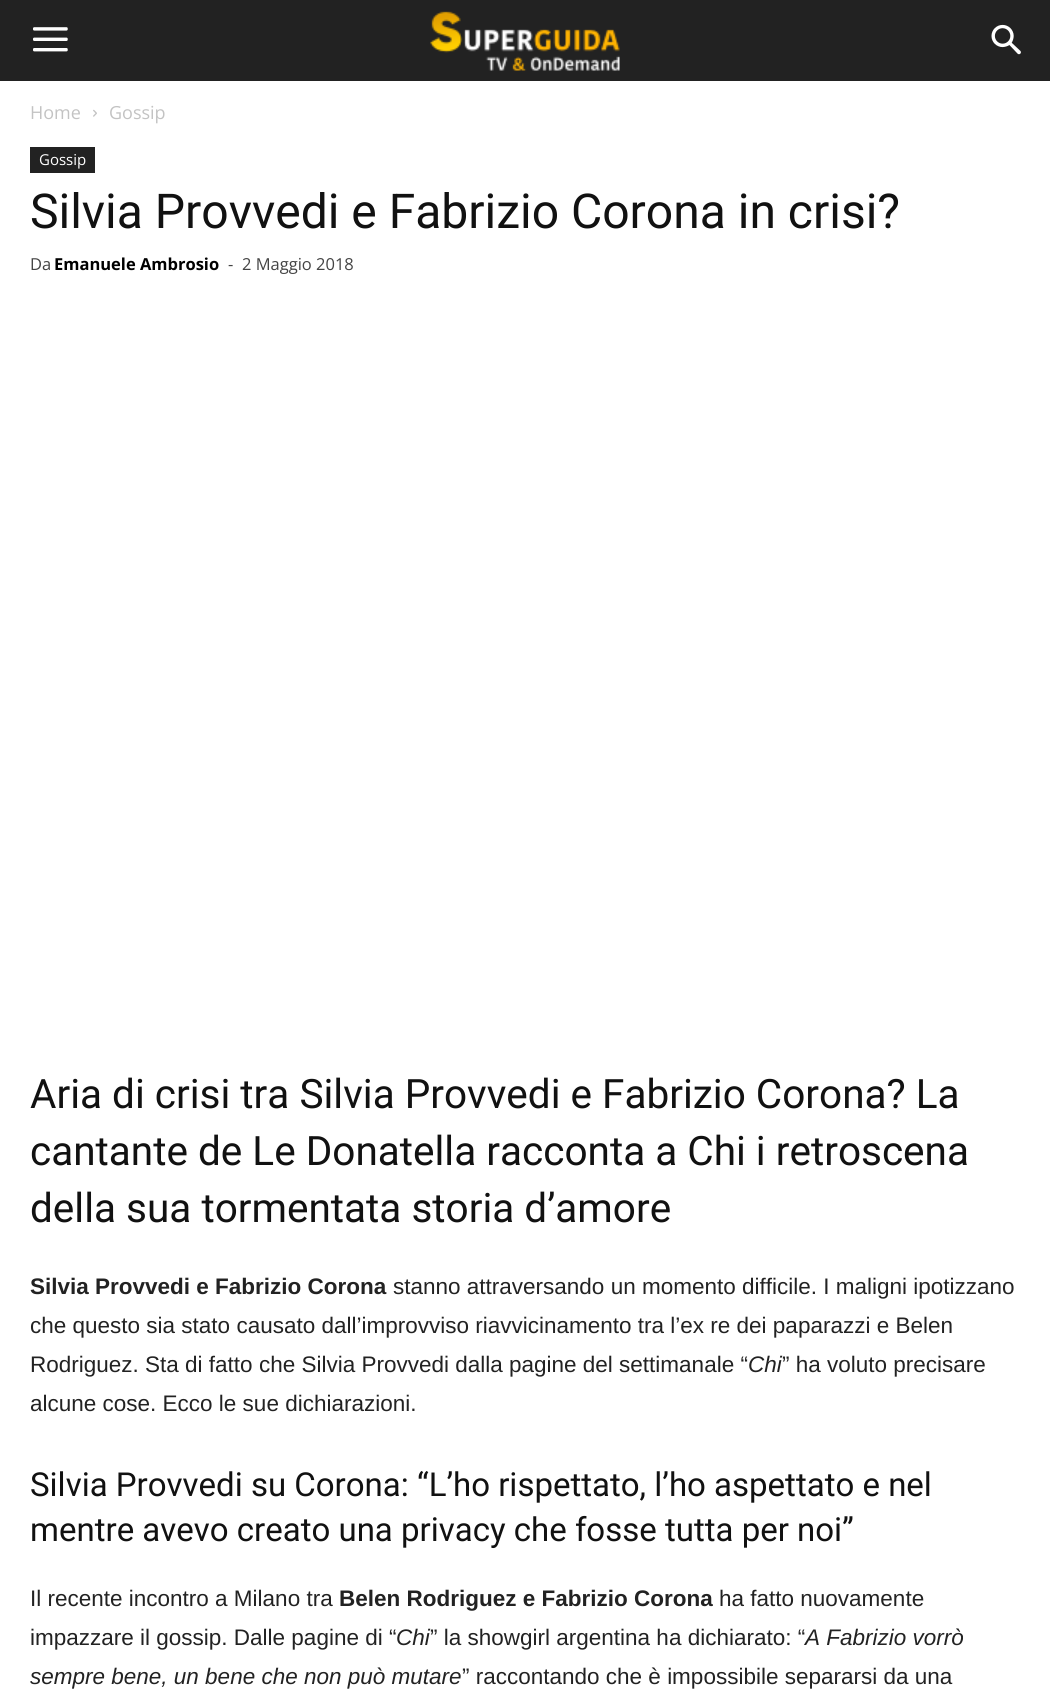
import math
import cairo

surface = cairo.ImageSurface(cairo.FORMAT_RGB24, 1050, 1708)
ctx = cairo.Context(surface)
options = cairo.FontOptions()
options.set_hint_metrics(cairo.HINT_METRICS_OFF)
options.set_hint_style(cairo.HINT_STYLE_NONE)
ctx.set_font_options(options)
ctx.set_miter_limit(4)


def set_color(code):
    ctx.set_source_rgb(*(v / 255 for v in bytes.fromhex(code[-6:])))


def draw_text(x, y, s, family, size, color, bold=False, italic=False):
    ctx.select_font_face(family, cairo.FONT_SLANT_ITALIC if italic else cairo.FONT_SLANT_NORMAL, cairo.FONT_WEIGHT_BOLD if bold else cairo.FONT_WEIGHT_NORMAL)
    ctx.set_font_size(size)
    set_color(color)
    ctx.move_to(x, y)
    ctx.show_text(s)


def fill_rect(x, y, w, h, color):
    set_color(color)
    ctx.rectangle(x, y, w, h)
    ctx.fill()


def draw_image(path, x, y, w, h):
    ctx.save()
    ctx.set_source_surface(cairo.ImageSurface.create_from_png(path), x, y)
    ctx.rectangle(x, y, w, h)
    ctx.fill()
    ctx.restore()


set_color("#ffffff")
ctx.paint()
fill_rect(0, 0, 1050, 81, "#222222")
draw_image("assets/img1.png", 33, 27, 35, 25)
draw_image("assets/img2.png", 430, 11, 190, 60)
draw_image("assets/img3.png", 991, 24, 30, 31)
draw_text(30, 119, "Home", "Open Sans", 18, "#c3c3c3")
draw_image("assets/img4.png", 93, 109, 4, 8)
draw_text(109, 119, "Gossip", "Open Sans", 18, "#c3c3c3")
fill_rect(30, 147, 65, 26, "#222222")
draw_text(39, 165, "Gossip", "Open Sans", 15, "#ffffff")
draw_text(30, 228, "Silvia Provvedi e Fabrizio Corona in crisi?", "Roboto", 48, "#111111")
draw_text(30, 270, "Da", "Open Sans", 16.5, "#444444")
draw_text(54, 270, "Emanuele Ambrosio", "Open Sans", 16.5, "#000000", bold=True)
draw_text(228, 270, "-", "Open Sans", 16.5, "#444444")
draw_text(242, 270, "2 Maggio 2018", "Open Sans", 16.5, "#444444")
draw_text(30, 1108, "Aria di crisi tra Silvia Provvedi e Fabrizio Corona? La", "Roboto", 40.5, "#111111")
draw_text(30, 1165, "cantante de Le Donatella racconta a Chi i retroscena", "Roboto", 40.5, "#111111")
draw_text(30, 1222, "della sua tormentata storia d’amore", "Roboto", 40.5, "#111111")
draw_text(30, 1294, "Silvia Provvedi e Fabrizio Corona", "Liberation Sans", 22.5, "#222222", bold=True)
draw_text(393, 1294, "stanno attraversando un momento difficile. I maligni ipotizzano", "Liberation Sans", 22.5, "#222222")
draw_text(30, 1333, "che questo sia stato causato dall’improvviso riavvicinamento tra l’ex re dei paparazzi e Belen", "Liberation Sans", 22.5, "#222222")
draw_text(30, 1372, "Rodriguez. Sta di fatto che Silvia Provvedi dalla pagine del settimanale “", "Liberation Sans", 22.5, "#222222")
draw_text(748, 1372, "Chi", "Liberation Sans", 22.5, "#222222", italic=True)
draw_text(782, 1372, "” ha voluto precisare", "Liberation Sans", 22.5, "#222222")
draw_text(30, 1411, "alcune cose. Ecco le sue dichiarazioni.", "Liberation Sans", 22.5, "#222222")
draw_text(30, 1496, "Silvia Provvedi su Corona: “L’ho rispettato, l’ho aspettato e nel", "Roboto", 33, "#111111")
draw_text(30, 1541, "mentre avevo creato una privacy che fosse tutta per noi”", "Roboto", 33, "#111111")
draw_text(30, 1606, "Il recente incontro a Milano tra", "Liberation Sans", 22.5, "#222222")
draw_text(339, 1606, "Belen Rodriguez e Fabrizio Corona", "Liberation Sans", 22.5, "#222222", bold=True)
draw_text(719, 1606, "ha fatto nuovamente", "Liberation Sans", 22.5, "#222222")
draw_text(30, 1645, "impazzare il gossip. Dalle pagine di “", "Liberation Sans", 22.5, "#222222")
draw_text(396, 1645, "Chi", "Liberation Sans", 22.5, "#222222", italic=True)
draw_text(430, 1645, "” la showgirl argentina ha dichiarato: “", "Liberation Sans", 22.5, "#222222")
draw_text(805, 1645, "A Fabrizio vorrò", "Liberation Sans", 22.5, "#222222", italic=True)
draw_text(30, 1684, "sempre bene, un bene che non può mutare", "Liberation Sans", 22.5, "#222222", italic=True)
draw_text(462, 1684, "” raccontando che è impossibile separarsi da una", "Liberation Sans", 22.5, "#222222")
surface.write_to_png("output.png")
